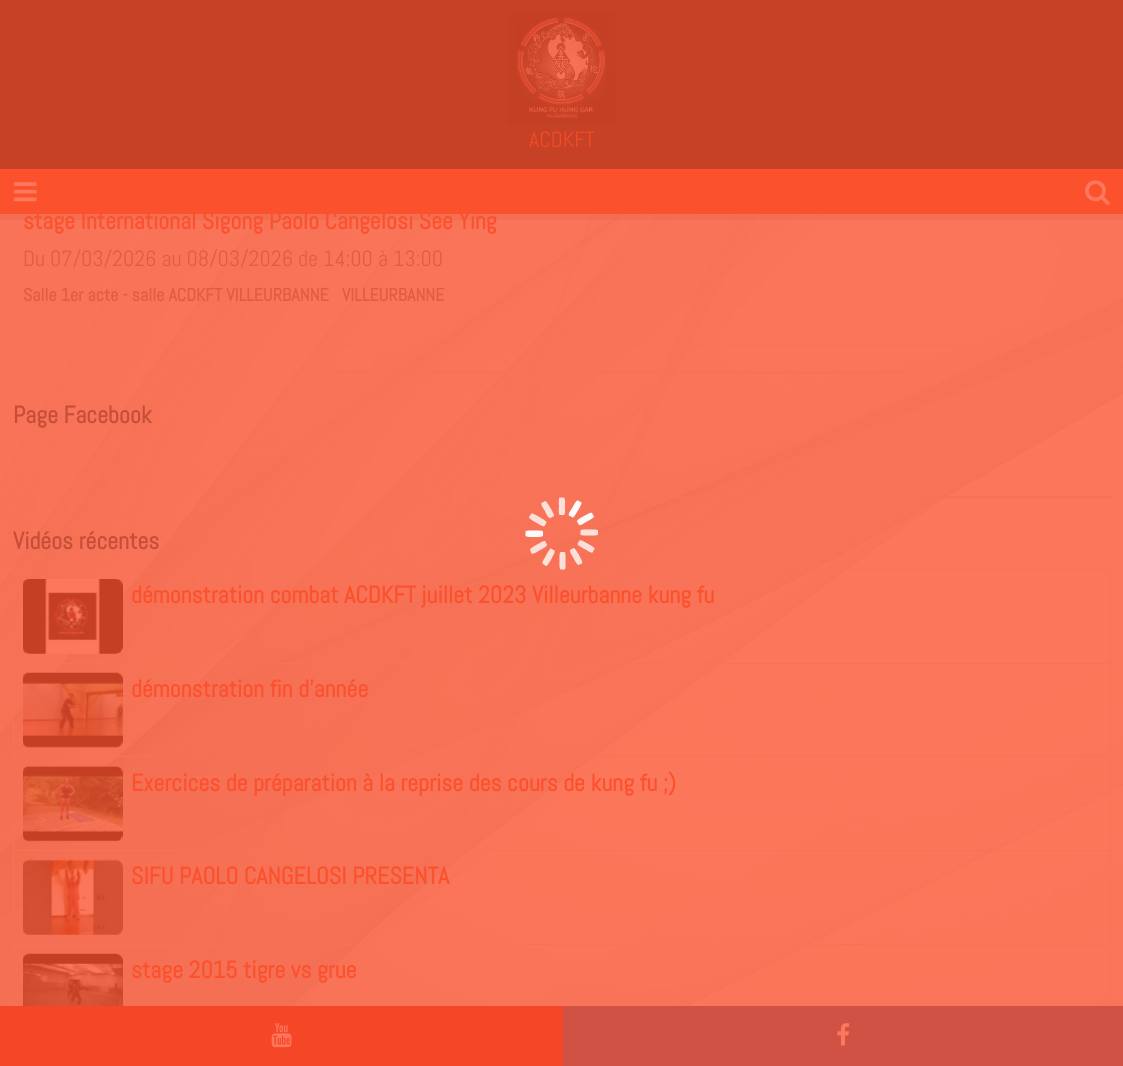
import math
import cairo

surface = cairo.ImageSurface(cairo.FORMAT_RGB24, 1123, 1066)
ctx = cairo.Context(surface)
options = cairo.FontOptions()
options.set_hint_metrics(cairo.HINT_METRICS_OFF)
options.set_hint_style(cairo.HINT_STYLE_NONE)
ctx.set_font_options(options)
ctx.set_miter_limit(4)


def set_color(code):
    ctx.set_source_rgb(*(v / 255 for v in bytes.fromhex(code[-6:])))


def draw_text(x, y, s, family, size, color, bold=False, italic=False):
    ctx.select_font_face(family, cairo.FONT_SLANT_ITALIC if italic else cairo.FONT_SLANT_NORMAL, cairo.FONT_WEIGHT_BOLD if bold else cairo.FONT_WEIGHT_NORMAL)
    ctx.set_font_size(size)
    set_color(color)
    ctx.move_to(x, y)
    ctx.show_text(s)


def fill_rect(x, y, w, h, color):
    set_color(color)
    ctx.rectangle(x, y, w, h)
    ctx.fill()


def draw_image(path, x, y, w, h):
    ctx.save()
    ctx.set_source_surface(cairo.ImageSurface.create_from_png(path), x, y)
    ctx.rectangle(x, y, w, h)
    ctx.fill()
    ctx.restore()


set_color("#fc775b")
ctx.paint()
draw_image("assets/img1.png", 0, 214, 1123, 792)
ctx.rectangle(13.5, 45.5, 1097, 300)
set_color("#f77256")
ctx.set_line_width(1)
ctx.stroke()
ctx.set_source_rgba(0.769, 0.247, 0.137, 0.1)
ctx.new_path()
ctx.move_to(0, 214)
ctx.line_to(0, 220)
ctx.line_to(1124, 220)
ctx.line_to(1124, 6)
ctx.line_to(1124, 214)
ctx.close_path()
ctx.fill()
fill_rect(0, 0, 1123, 169, "#c64125")
draw_image("assets/img2.png", 507, 12, 109, 113)
draw_text(529, 147, "ACDKFT", "Abel", 22, "#f14a26")
fill_rect(0, 169, 1123, 45, "#fb512d")
draw_image("assets/img3.png", 13, 182, 24, 20)
draw_image("assets/img4.png", 1085, 180, 25, 25)
draw_text(23, 229, "stage International Sigong Paolo Cangelosi See Ying", "Abel", 24, "#fb512d", bold=True)
draw_text(23, 266, "Du 07/03/2026 au 08/03/2026 de 14:00 à 13:00", "Abel", 22, "#e15c40")
draw_text(23, 301, "Salle 1er acte - salle ACDKFT VILLEURBANNE", "Abel", 18, "#e15c40", bold=True)
draw_text(342, 301, "VILLEURBANNE", "Abel", 18, "#e15c40", bold=True)
fill_rect(292, 371, 612, 3, "#f77256")
draw_text(13, 423, "Page Facebook", "Abel", 24, "#c64e38", bold=True)
fill_rect(675, 496, 436, 3, "#f77256")
draw_text(13, 549, "Vidéos récentes", "Abel", 24, "#c64e38", bold=True)
ctx.rectangle(13.5, 569.5, 1097, 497)
set_color("#f77256")
ctx.stroke()
fill_rect(62, 663, 1048, 1, "#f77256")
draw_image("assets/img5.png", 23, 579, 100, 75)
draw_text(131, 603, "démonstration combat ACDKFT juillet 2023 Villeurbanne kung fu", "Abel", 24, "#fb512d", bold=True)
fill_rect(14, 756, 1096, 1, "#f77256")
draw_image("assets/img6.png", 23, 672, 100, 76)
draw_text(131, 697, "démonstration fin d'année", "Abel", 24, "#fb512d", bold=True)
fill_rect(14, 850, 1096, 1, "#f77256")
draw_image("assets/img7.png", 23, 765, 100, 77)
draw_text(131, 791, "Exercices de préparation à la reprise des cours de kung fu ;)", "Abel", 24, "#fb512d", bold=True)
fill_rect(14, 944, 1096, 1, "#f77256")
draw_image("assets/img8.png", 23, 859, 100, 76)
draw_text(131, 884, "SIFU PAOLO CANGELOSI PRESENTA", "Abel", 24, "#fb512d", bold=True)
draw_image("assets/img9.png", 23, 953, 100, 53)
draw_text(131, 978, "stage 2015 tigre vs grue", "Abel", 24, "#fb512d", bold=True)
set_color("#fde0d9")
ctx.new_path()
ctx.move_to(529, 517)
ctx.line_to(531.5, 513.5)
ctx.curve_to(533, 513, 538, 516.5, 539.5, 517)
ctx.curve_to(540.5, 518, 546.5, 520.5, 546.5, 522.5)
ctx.line_to(544.5, 526)
ctx.curve_to(543.5, 527.5, 537, 523, 536, 522.5)
ctx.curve_to(535.5, 522.5, 528.5, 518.5, 529, 517)
ctx.close_path()
ctx.fill()
ctx.new_path()
ctx.move_to(541.5, 503)
ctx.line_to(545, 501)
ctx.curve_to(547, 501, 549.5, 507, 550.5, 508)
ctx.curve_to(551, 509, 554.5, 514.5, 554, 516)
ctx.line_to(550.5, 518)
ctx.curve_to(548.5, 519, 545, 512, 545, 511)
ctx.curve_to(544.5, 510.5, 540, 504, 541.5, 503)
ctx.close_path()
ctx.fill()
ctx.new_path()
ctx.move_to(560, 497.5)
ctx.line_to(564, 497.5)
ctx.curve_to(565.5, 498.5, 565, 505, 565, 506)
ctx.curve_to(565, 507.5, 565.5, 514, 564, 515)
ctx.line_to(560, 515)
ctx.curve_to(558, 515, 559, 507, 559, 506)
ctx.curve_to(559, 505.5, 558, 497.5, 560, 497.5)
ctx.close_path()
ctx.fill()
set_color("#fbfbfb")
ctx.new_path()
ctx.move_to(578, 500.5)
ctx.line_to(581.5, 502.5)
ctx.curve_to(582, 504, 578.5, 509.5, 578, 510.5)
ctx.curve_to(577, 511.5, 574.5, 517.5, 572.5, 517.5)
ctx.line_to(569, 515.5)
ctx.curve_to(567.5, 514.5, 572, 508, 572.5, 507.5)
ctx.curve_to(572.5, 507, 576.5, 499.5, 578, 500.5)
ctx.close_path()
ctx.fill()
set_color("#fafafa")
ctx.new_path()
ctx.move_to(592, 513)
ctx.line_to(594, 516.5)
ctx.curve_to(594, 518, 588, 521, 587, 521.5)
ctx.curve_to(586, 522, 580.5, 526, 579, 525)
ctx.line_to(577, 521.5)
ctx.curve_to(576, 520, 583, 516.5, 584, 516)
ctx.curve_to(584.5, 516, 591, 511.5, 592, 513)
ctx.close_path()
ctx.fill()
set_color("#fbfbfb")
ctx.new_path()
ctx.move_to(525.5, 535.5)
ctx.line_to(525.5, 531.5)
ctx.curve_to(526.5, 530, 533, 530.5, 534.5, 530.5)
ctx.curve_to(535.5, 530.5, 542, 530, 543, 531.5)
ctx.line_to(543, 535.5)
ctx.curve_to(543, 537.5, 535, 537, 534.5, 537)
ctx.curve_to(533.5, 537, 525.5, 537.5, 525.5, 535.5)
ctx.close_path()
ctx.fill()
ctx.set_source_rgba(1, 1, 1, 0.78)
ctx.new_path()
ctx.move_to(598, 530.5)
ctx.line_to(598, 534.5)
ctx.curve_to(597, 536, 590.5, 535.5, 589.5, 535.5)
ctx.curve_to(588, 535.5, 581.5, 536, 580.5, 534.5)
ctx.line_to(580.5, 530.5)
ctx.curve_to(580.5, 529, 588.5, 529.5, 589.5, 529.5)
ctx.curve_to(590, 529.5, 598, 529, 598, 530.5)
ctx.close_path()
ctx.fill()
ctx.new_path()
ctx.move_to(546, 566)
ctx.line_to(542.5, 563.5)
ctx.curve_to(541.5, 562, 545.5, 557, 546, 555.5)
ctx.curve_to(546.5, 554.5, 549.5, 548.5, 551, 548.5)
ctx.line_to(554.5, 550.5)
ctx.curve_to(556, 551.5, 551.5, 558, 551.5, 559)
ctx.curve_to(551, 559.5, 547.5, 566.5, 546, 566)
ctx.close_path()
ctx.fill()
set_color("#fddfd9")
ctx.new_path()
ctx.move_to(531.5, 553.5)
ctx.line_to(530, 550)
ctx.curve_to(530, 548, 535.5, 545.5, 537, 544.5)
ctx.curve_to(538, 544, 543.5, 540.5, 545, 541)
ctx.line_to(547, 544.5)
ctx.curve_to(547.5, 546.5, 540.5, 550, 540, 550)
ctx.curve_to(539.5, 550.5, 532.5, 555, 531.5, 553.5)
ctx.close_path()
ctx.fill()
ctx.new_path()
ctx.move_to(594.5, 549)
ctx.line_to(592.5, 552.5)
ctx.curve_to(591, 553.5, 585.5, 549.5, 584.5, 549)
ctx.curve_to(583.5, 548.5, 577.5, 545.5, 577.5, 544)
ctx.line_to(579.5, 540.5)
ctx.curve_to(580.5, 539, 587, 543.5, 587.5, 543.5)
ctx.curve_to(588, 544, 595.5, 547.5, 594.5, 549)
ctx.close_path()
ctx.fill()
ctx.new_path()
ctx.move_to(582, 563.5)
ctx.line_to(578.5, 565)
ctx.curve_to(577, 565, 574, 559.5, 573.5, 558)
ctx.curve_to(573, 557, 569, 551.5, 570, 550)
ctx.line_to(573.5, 548)
ctx.curve_to(575, 547.5, 578.5, 554.5, 579, 555)
ctx.curve_to(579, 555.5, 583.5, 562.5, 582, 563.5)
ctx.close_path()
ctx.move_to(564.5, 569.5)
ctx.line_to(560.5, 569.5)
ctx.curve_to(559, 568.5, 559.5, 562, 559.5, 560.5)
ctx.curve_to(559.5, 559.5, 559, 553, 560.5, 552)
ctx.line_to(564.5, 552)
ctx.curve_to(566, 552, 565.5, 560, 565.5, 560.5)
ctx.curve_to(565.5, 561.5, 566, 569.5, 564.5, 569.5)
ctx.close_path()
ctx.fill()
fill_rect(0, 1006, 563, 60, "#f64628")
draw_image("assets/img10.png", 271, 1023, 21, 25)
fill_rect(563, 1006, 560, 60, "#d05245")
draw_image("assets/img11.png", 837, 1023, 13, 23)
surface.write_to_png("output.png")
